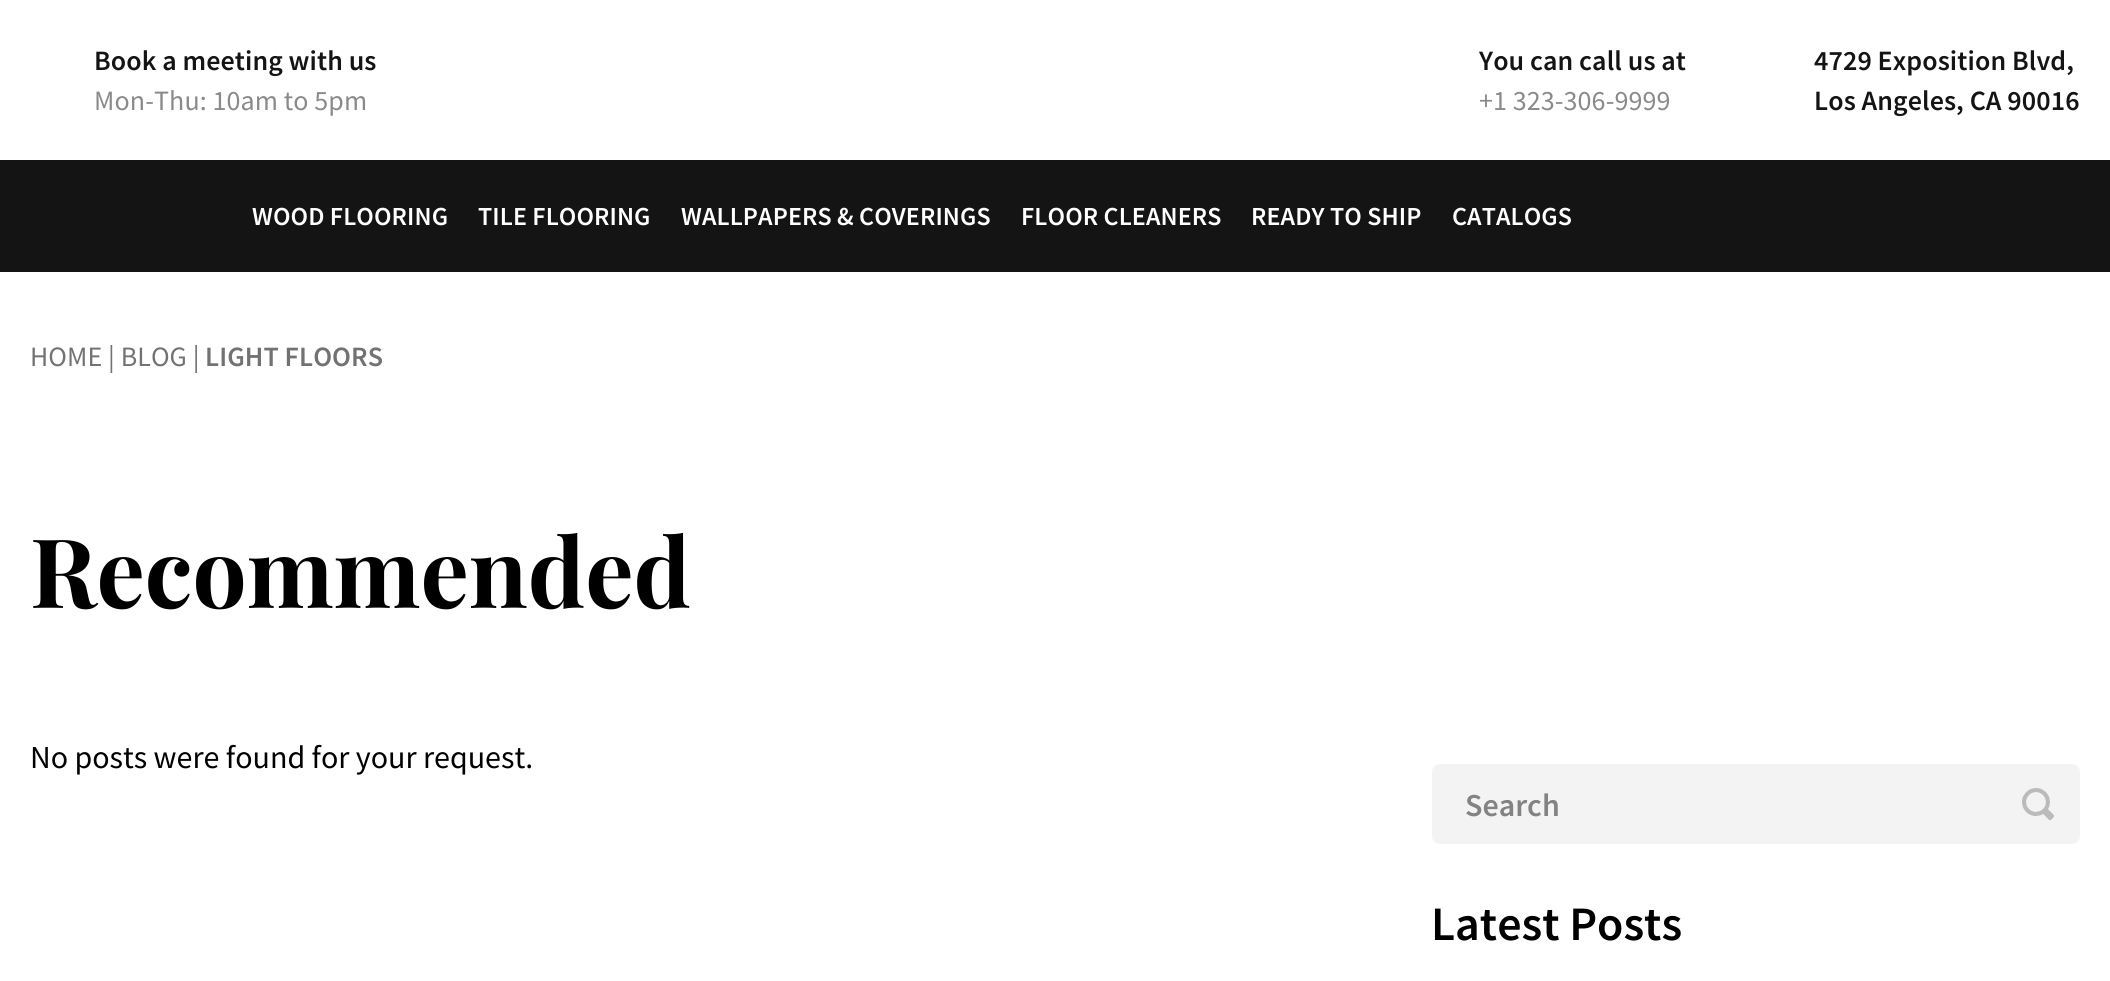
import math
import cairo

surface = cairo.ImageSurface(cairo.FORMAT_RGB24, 2110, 981)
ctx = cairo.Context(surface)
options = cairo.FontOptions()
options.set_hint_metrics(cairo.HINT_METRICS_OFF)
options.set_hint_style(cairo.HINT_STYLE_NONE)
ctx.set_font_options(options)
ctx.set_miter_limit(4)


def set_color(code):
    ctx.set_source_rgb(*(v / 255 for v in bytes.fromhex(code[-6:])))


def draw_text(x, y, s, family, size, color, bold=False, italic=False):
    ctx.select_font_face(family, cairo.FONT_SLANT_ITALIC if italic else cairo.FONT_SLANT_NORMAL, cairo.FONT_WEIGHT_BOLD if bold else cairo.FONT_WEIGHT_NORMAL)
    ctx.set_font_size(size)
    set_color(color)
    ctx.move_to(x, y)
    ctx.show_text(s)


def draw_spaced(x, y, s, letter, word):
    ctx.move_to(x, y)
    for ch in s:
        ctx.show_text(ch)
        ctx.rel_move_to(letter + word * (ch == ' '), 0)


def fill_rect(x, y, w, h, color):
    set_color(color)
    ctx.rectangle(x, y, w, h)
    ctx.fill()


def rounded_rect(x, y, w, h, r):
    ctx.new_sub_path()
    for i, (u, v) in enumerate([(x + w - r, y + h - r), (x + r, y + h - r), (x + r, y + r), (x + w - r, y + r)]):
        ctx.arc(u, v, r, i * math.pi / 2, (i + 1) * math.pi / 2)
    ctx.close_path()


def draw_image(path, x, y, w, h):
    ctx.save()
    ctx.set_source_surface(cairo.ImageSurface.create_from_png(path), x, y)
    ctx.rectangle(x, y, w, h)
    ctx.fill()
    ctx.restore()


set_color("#ffffff")
ctx.paint()
ctx.select_font_face("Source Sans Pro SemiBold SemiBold")
ctx.set_font_size(28)
set_color("#141414")
draw_spaced(94, 70, "Book a meeting with us", 0.1, 0)
ctx.select_font_face("Source Sans Pro")
set_color("#8a8a8a")
draw_spaced(94, 110, "Mon-Thu: 10am to 5pm", 0.1, 0)
ctx.select_font_face("Source Sans Pro SemiBold SemiBold")
set_color("#141414")
draw_spaced(1479, 70, "You can call us at", 0.1, 0)
ctx.select_font_face("Source Sans Pro")
set_color("#8a8a8a")
draw_spaced(1479, 110, "+1 323-306-9999", 0.1, 0)
ctx.select_font_face("Source Sans Pro SemiBold SemiBold")
set_color("#141414")
draw_spaced(1814, 70, "4729 Exposition Blvd,", 0.1, 0)
draw_spaced(1814, 110, "Los Angeles, CA 90016", 0.1, 0)
fill_rect(0, 160, 2110, 112, "#141414")
ctx.set_font_size(26)
set_color("#ffffff")
draw_spaced(252, 225, "WOOD FLOORING", 0.1, 0)
draw_spaced(478, 225, "TILE FLOORING", 0.1, 0)
draw_spaced(681, 225, "WALLPAPERS & COVERINGS", 0.1, 0)
draw_spaced(1021, 225, "FLOOR CLEANERS", 0.1, 0)
draw_spaced(1251, 225, "READY TO SHIP", 0.1, 0)
draw_spaced(1452, 225, "CATALOGS", 0.1, 0)
ctx.select_font_face("Source Sans Pro")
ctx.set_font_size(28)
set_color("#727272")
draw_spaced(30, 366, "HOME | BLOG |", 0.1, 0)
ctx.select_font_face("Source Sans Pro SemiBold SemiBold")
draw_spaced(205, 366, "LIGHT FLOORS", 0.1, 0)
draw_text(30, 608, "Recommended", "Playfair Display", 96, "#000000", bold=True)
draw_text(30, 768, "No posts were found for your request.", "Source Sans Pro", 32, "#000000")
set_color("#f3f3f3")
rounded_rect(1432, 764, 648, 80, 8)
ctx.fill()
draw_image("assets/img1.png", 2022, 788, 32, 33)
draw_text(1465, 816, "Search", "Source Sans Pro SemiBold SemiBold", 32, "#838383")
draw_text(1431, 940, "Latest Posts", "Source Sans Pro SemiBold SemiBold", 48, "#000000")
surface.write_to_png("output.png")
